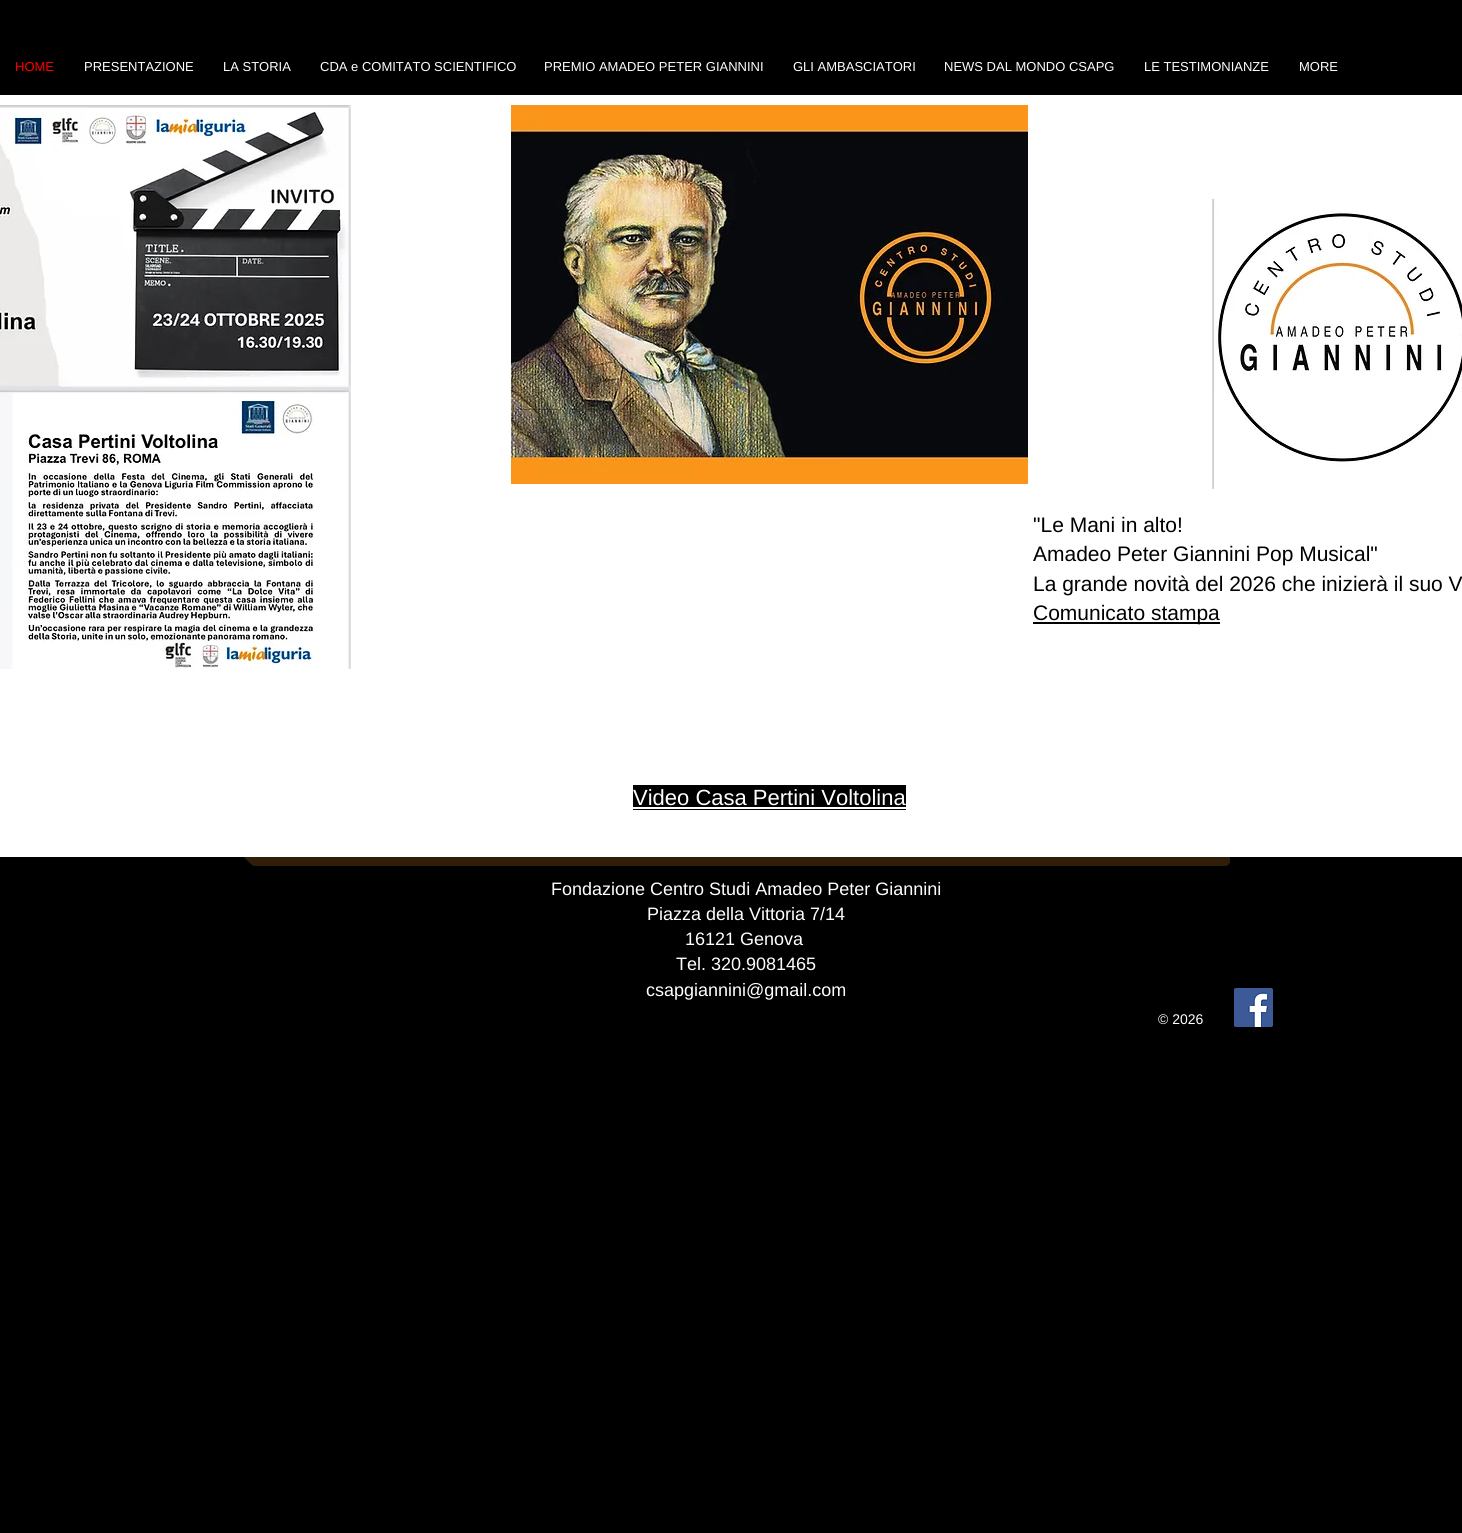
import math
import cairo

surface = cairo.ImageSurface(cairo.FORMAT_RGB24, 1462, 1533)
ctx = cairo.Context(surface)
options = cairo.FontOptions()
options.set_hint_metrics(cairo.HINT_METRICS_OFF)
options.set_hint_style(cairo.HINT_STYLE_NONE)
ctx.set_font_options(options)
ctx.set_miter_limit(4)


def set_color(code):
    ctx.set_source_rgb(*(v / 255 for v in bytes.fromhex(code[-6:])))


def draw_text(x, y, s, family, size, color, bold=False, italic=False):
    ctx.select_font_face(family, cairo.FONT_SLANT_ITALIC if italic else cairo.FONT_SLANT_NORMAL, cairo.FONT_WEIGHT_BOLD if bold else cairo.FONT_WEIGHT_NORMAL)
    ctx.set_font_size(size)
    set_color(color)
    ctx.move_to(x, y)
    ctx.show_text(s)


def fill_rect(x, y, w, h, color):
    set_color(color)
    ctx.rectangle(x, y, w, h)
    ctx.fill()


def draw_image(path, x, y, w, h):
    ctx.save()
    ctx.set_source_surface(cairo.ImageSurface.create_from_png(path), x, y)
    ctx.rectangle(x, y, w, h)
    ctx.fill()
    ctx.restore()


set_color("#000000")
ctx.paint()
draw_text(15, 71, "HOME", "Liberation Sans", 13, "#ff0000")
draw_text(84, 71, "PRESENTAZIONE", "Liberation Sans", 13, "#ffffff")
draw_text(223, 71, "LA STORIA", "Liberation Sans", 13, "#ffffff")
draw_text(320, 71, "CDA e COMITATO SCIENTIFICO", "Liberation Sans", 13, "#ffffff")
draw_text(544, 71, "PREMIO AMADEO PETER GIANNINI", "Liberation Sans", 13, "#ffffff")
draw_text(793, 71, "GLI AMBASCIATORI", "Liberation Sans", 13, "#ffffff")
draw_text(944, 71, "NEWS DAL MONDO CSAPG", "Liberation Sans", 13, "#ffffff")
draw_text(1144, 71, "LE TESTIMONIANZE", "Liberation Sans", 13, "#ffffff")
draw_text(1299, 71, "MORE", "Liberation Sans", 13, "#ffffff")
set_color("#301e0a")
ctx.new_path()
ctx.move_to(250, 857)
ctx.line_to(250, 861)
ctx.curve_to(250, 864, 252, 866, 255, 866)
ctx.line_to(1225, 866)
ctx.curve_to(1228, 866, 1230, 864, 1230, 861)
ctx.line_to(1230, 109)
ctx.curve_to(1230, 106, 1228, 104, 1225, 104)
ctx.line_to(1221, 104)
ctx.line_to(1221, 852)
ctx.curve_to(1221, 855, 1219, 857, 1216, 857)
ctx.close_path()
ctx.fill()
ctx.new_path()
ctx.move_to(248, 857)
ctx.line_to(248, 859)
ctx.curve_to(248, 862, 250, 864, 253, 864)
ctx.line_to(1223, 864)
ctx.curve_to(1226, 864, 1228, 862, 1228, 859)
ctx.line_to(1228, 107)
ctx.curve_to(1228, 104, 1226, 102, 1223, 102)
ctx.line_to(1221, 102)
ctx.line_to(1221, 852)
ctx.curve_to(1221, 855, 1219, 857, 1216, 857)
ctx.close_path()
ctx.fill()
ctx.new_path()
ctx.move_to(246, 857)
ctx.curve_to(246, 860, 248, 862, 251, 862)
ctx.line_to(1221, 862)
ctx.curve_to(1224, 862, 1226, 860, 1226, 857)
ctx.line_to(1226, 105)
ctx.curve_to(1226, 102, 1224, 100, 1221, 100)
ctx.line_to(1221, 852)
ctx.curve_to(1221, 855, 1219, 857, 1216, 857)
ctx.close_path()
ctx.fill()
ctx.new_path()
ctx.move_to(244, 857)
ctx.curve_to(245, 859, 247, 860, 249, 860)
ctx.line_to(1219, 860)
ctx.curve_to(1222, 860, 1224, 858, 1224, 855)
ctx.line_to(1224, 103)
ctx.curve_to(1224, 101, 1223, 99, 1221, 98)
ctx.line_to(1221, 852)
ctx.curve_to(1221, 855, 1219, 857, 1216, 857)
ctx.close_path()
ctx.fill()
ctx.new_path()
ctx.move_to(243, 856)
ctx.curve_to(244, 857, 245, 858, 247, 858)
ctx.line_to(1217, 858)
ctx.curve_to(1220, 858, 1222, 856, 1222, 853)
ctx.line_to(1222, 101)
ctx.curve_to(1222, 99, 1221, 98, 1220, 97)
ctx.curve_to(1221, 98, 1221, 99, 1221, 100)
ctx.line_to(1221, 852)
ctx.curve_to(1221, 855, 1219, 857, 1216, 857)
ctx.line_to(246, 857)
ctx.curve_to(245, 857, 244, 857, 243, 856)
ctx.close_path()
ctx.fill()
fill_rect(0, 95, 1462, 762, "#ffffff")
draw_image("assets/img1.png", 0, 105, 351, 564)
draw_image("assets/img2.png", 511, 105, 517, 379)
draw_image("assets/img3.png", 1212, 199, 250, 290)
draw_text(1033, 532, "\"Le Mani in alto!", "Liberation Sans", 21, "#000000")
draw_text(1033, 561, "Amadeo Peter Giannini Pop Musical\"", "Liberation Sans", 21, "#000000")
draw_text(1033, 591, "La grande novità del 2026 che inizierà il suo V", "Liberation Sans", 21, "#000000")
fill_rect(1033, 622, 187, 2, "#000000")
draw_text(1033, 620, "Comunicato stampa", "Liberation Sans", 21, "#000000")
fill_rect(633, 785, 273, 25, "#000000")
draw_text(633, 805, "Video Casa Pertini Voltolina", "Liberation Sans", 22, "#ffffff")
fill_rect(633, 807, 273, 2, "#ffffff")
draw_text(551, 895, "Fondazione Centro Studi Amadeo Peter Giannini", "Liberation Sans", 18, "#ffffff")
draw_text(647, 920, "Piazza della Vittoria 7/14", "Liberation Sans", 18, "#ffffff")
draw_text(685, 945, "16121 Genova", "Liberation Sans", 18, "#ffffff")
draw_text(676, 970, "Tel. 320.9081465", "Liberation Sans", 18, "#ffffff")
draw_text(646, 996, "csapgiannini@gmail.com", "Liberation Sans", 18, "#ffffff")
draw_text(1158, 1024, "© 2026", "Liberation Sans", 14, "#ffffff")
draw_image("assets/img4.png", 1234, 988, 39, 39)
surface.write_to_png("output.png")
